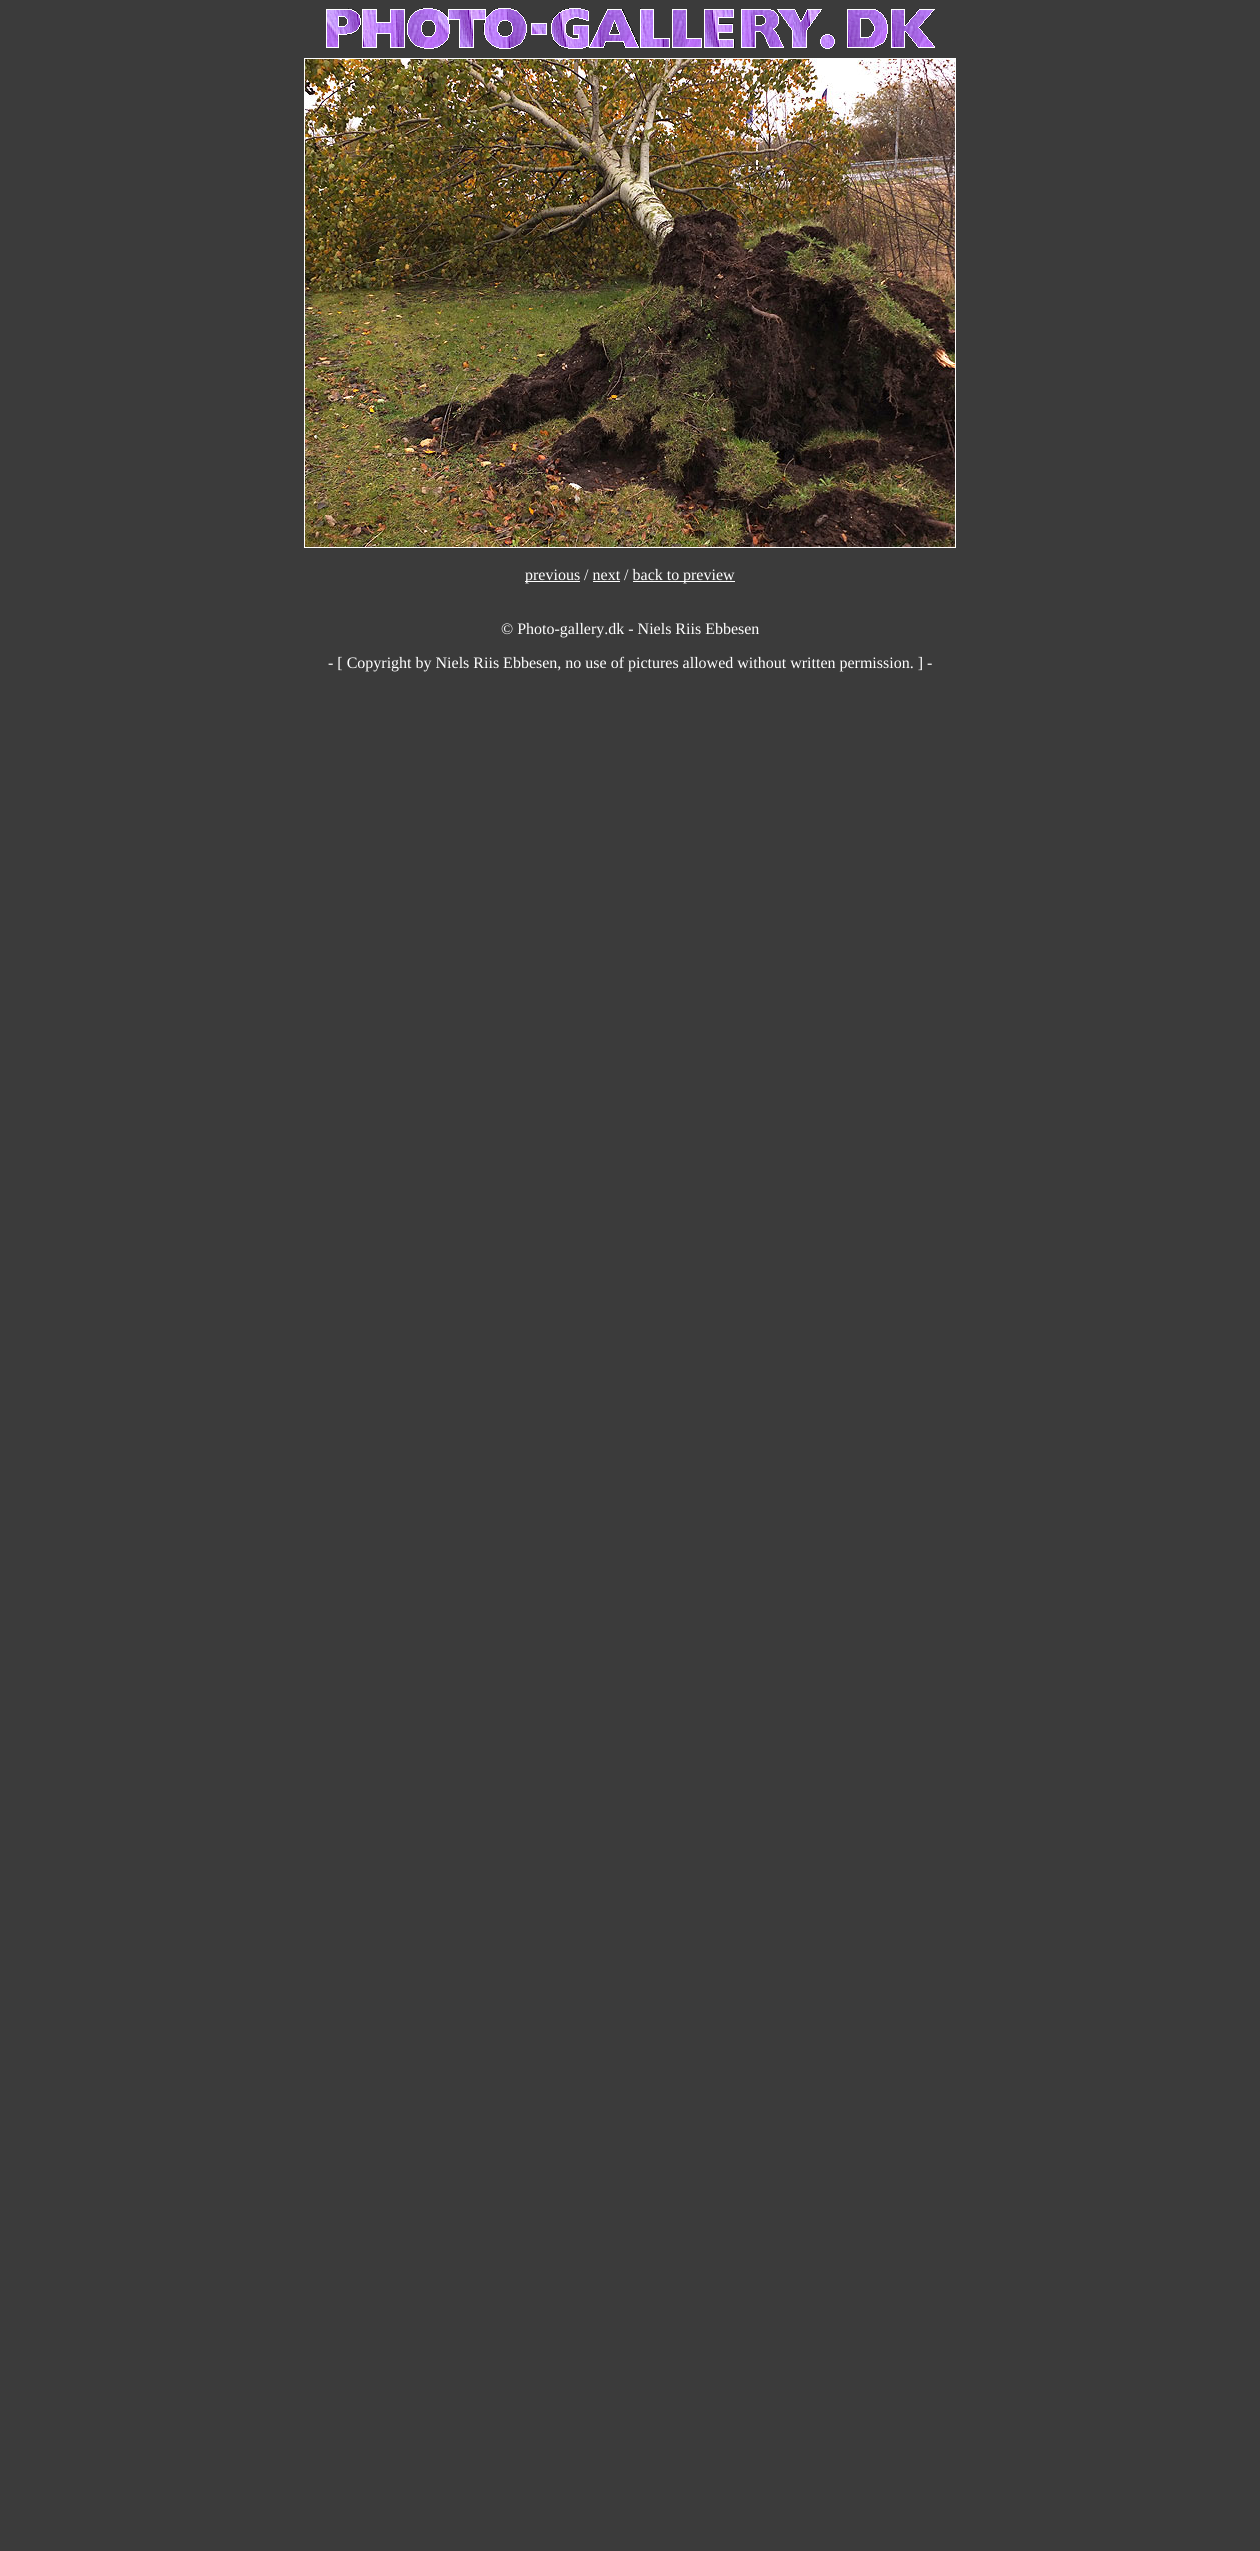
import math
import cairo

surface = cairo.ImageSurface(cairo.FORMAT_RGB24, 1260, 2551)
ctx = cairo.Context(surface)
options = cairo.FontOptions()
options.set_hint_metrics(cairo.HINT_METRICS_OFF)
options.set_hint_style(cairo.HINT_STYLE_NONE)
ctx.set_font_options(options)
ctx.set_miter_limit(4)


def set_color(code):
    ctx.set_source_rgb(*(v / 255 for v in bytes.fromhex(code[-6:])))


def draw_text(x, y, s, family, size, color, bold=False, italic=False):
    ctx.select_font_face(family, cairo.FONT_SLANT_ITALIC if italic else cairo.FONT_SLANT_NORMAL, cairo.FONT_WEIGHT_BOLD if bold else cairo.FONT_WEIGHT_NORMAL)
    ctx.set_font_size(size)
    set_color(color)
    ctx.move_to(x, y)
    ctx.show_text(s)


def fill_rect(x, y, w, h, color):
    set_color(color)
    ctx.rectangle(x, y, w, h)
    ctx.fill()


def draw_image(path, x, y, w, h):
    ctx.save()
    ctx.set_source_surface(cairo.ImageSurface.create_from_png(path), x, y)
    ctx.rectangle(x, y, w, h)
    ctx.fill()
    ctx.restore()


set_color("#3b3b3b")
ctx.paint()
draw_image("assets/img1.png", 326, 8, 609, 41)
ctx.rectangle(304.5, 58.5, 651, 489)
set_color("#ffffff")
ctx.set_line_width(1)
ctx.stroke()
draw_image("assets/img2.png", 305, 59, 650, 488)
fill_rect(525, 581, 55, 1, "#ffffff")
draw_text(525, 580, "previous / next / back to", "Liberation Serif", 16, "#ffffff")
fill_rect(633, 581, 102, 1, "#ffffff")
draw_text(683, 580, "preview", "Liberation Serif", 16, "#ffffff")
fill_rect(593, 581, 27, 1, "#ffffff")
draw_text(501, 634, "© Photo-gallery.dk - Niels Riis Ebbesen", "Liberation Serif", 16, "#ffffff")
draw_text(328, 668, "- [ Copyright by Niels Riis Ebbesen, no use of pictures allowed without written permission. ] -", "Liberation Serif", 16, "#ffffff")
surface.write_to_png("output.png")
